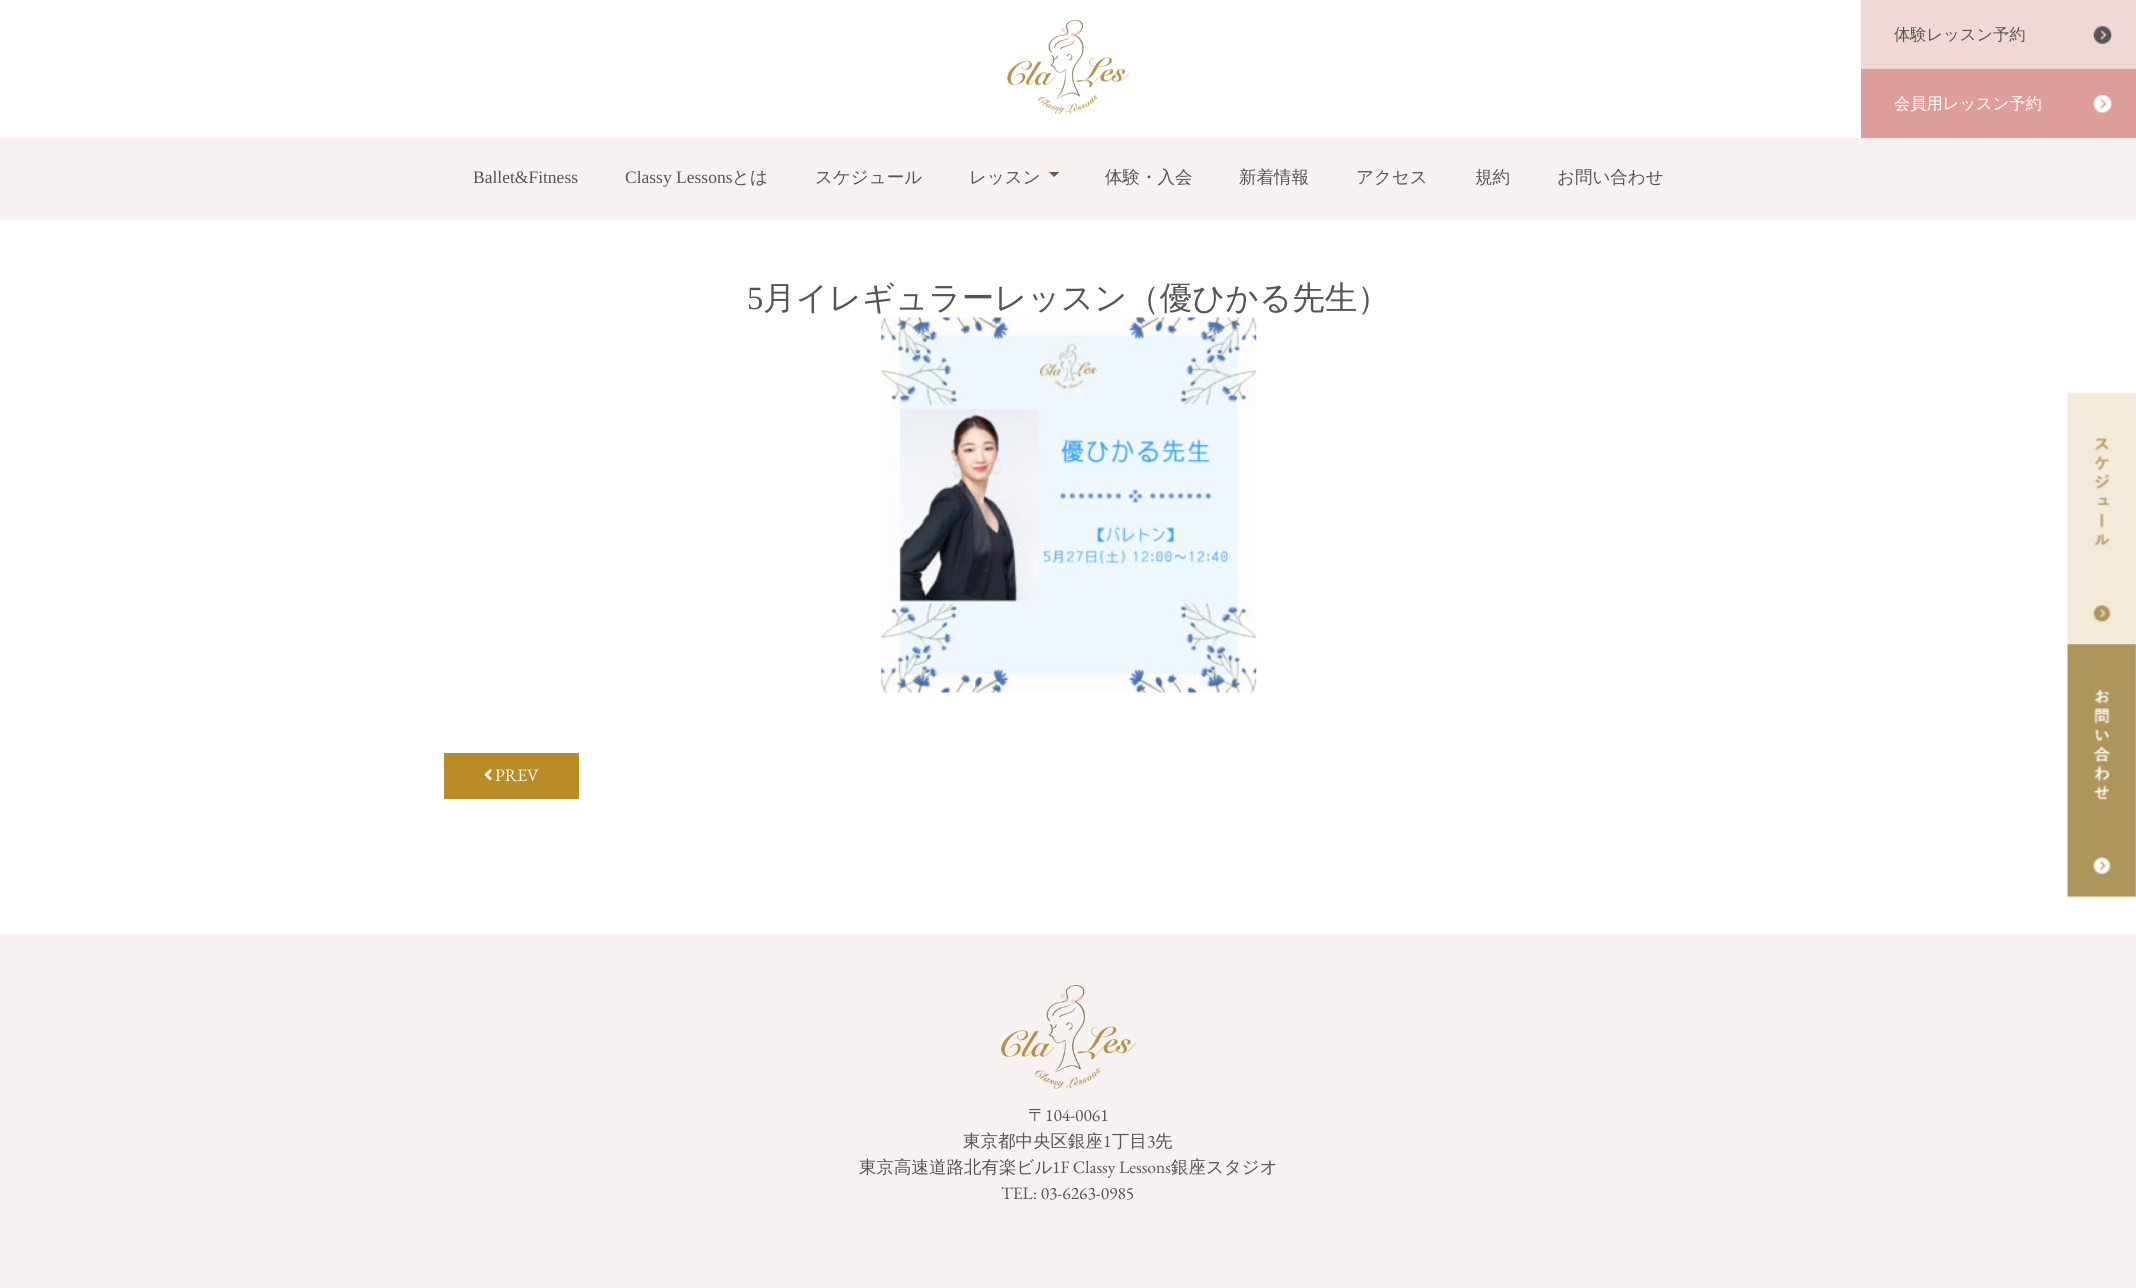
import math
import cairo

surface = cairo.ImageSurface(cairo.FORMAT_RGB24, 2136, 1288)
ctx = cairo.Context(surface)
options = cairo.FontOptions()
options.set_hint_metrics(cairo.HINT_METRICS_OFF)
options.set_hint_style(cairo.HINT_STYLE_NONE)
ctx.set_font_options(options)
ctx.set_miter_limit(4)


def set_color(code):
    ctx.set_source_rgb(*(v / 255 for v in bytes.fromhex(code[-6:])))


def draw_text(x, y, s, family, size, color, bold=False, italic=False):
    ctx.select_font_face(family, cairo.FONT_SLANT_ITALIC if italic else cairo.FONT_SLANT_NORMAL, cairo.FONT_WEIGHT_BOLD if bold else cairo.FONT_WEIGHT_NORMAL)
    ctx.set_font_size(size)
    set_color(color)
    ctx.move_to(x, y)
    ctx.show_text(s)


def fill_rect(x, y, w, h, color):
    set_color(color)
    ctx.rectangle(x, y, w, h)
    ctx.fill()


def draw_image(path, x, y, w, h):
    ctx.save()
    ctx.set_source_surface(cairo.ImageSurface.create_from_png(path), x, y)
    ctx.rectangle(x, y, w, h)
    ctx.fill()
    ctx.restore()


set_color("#ffffff")
ctx.paint()
draw_image("assets/img1.png", 1007, 20, 123, 94)
fill_rect(1861, 0, 275, 69, "#f1d8d7")
draw_image("assets/img2.png", 2093, 26, 19, 18)
draw_text(1894, 40, "体験レッスン予約", "WenQuanYi Zen Hei Medium", 16.25, "#555555")
fill_rect(1861, 69, 275, 69, "#dd9e9b")
draw_image("assets/img3.png", 2093, 95, 19, 18)
draw_text(1894, 109, "会員用レッスン予約", "WenQuanYi Zen Hei Medium", 16.25, "#ffffff")
fill_rect(0, 138, 2136, 82, "#f8f1f1")
draw_text(473, 183, "Ballet&Fitness", "Liberation Serif", 17.5, "#555555")
draw_text(625, 183, "Classy Lessons", "Liberation Serif", 17.5, "#555555")
draw_text(732, 183, "とは", "WenQuanYi Zen Hei Medium", 17.5, "#555555")
draw_text(815, 183, "スケジュール", "WenQuanYi Zen Hei Medium", 17.5, "#555555")
draw_text(969, 183, "レッスン", "WenQuanYi Zen Hei Medium", 17.5, "#555555")
set_color("#6f5c50")
ctx.new_path()
ctx.move_to(1054, 177)
ctx.line_to(1049, 172)
ctx.line_to(1059.5, 172)
ctx.close_path()
ctx.fill()
draw_text(1105, 183, "体験・入会", "WenQuanYi Zen Hei Medium", 17.5, "#555555")
draw_text(1239, 183, "新着情報", "WenQuanYi Zen Hei Medium", 17.5, "#555555")
draw_text(1356, 183, "アクセス", "WenQuanYi Zen Hei Medium", 17.5, "#555555")
draw_text(1475, 183, "規約", "WenQuanYi Zen Hei Medium", 17.5, "#555555")
draw_text(1557, 183, "お問い合わせ", "WenQuanYi Zen Hei Medium", 17.5, "#555555")
draw_text(747, 309, "5", "Liberation Serif", 32.5, "#555555")
draw_text(763, 309, "月イレギュラーレッスン（優ひかる先生）", "WenQuanYi Zen Hei Medium", 32.5, "#555555")
draw_image("assets/img4.png", 881, 317, 376, 376)
fill_rect(444, 753, 135, 46, "#b88d28")
draw_image("assets/img5.png", 484, 769, 8, 12)
draw_text(495, 781, "PREV", "EB Garamond", 17.5, "#ffffff")
draw_image("assets/img6.png", 2067, 392, 69, 253)
draw_image("assets/img7.png", 2067, 644, 69, 254)
fill_rect(0, 934, 2136, 354, "#f8f1f1")
draw_image("assets/img8.png", 1001, 985, 135, 104)
draw_text(1028, 1121, "〒", "WenQuanYi Zen Hei Medium", 17.5, "#555555")
draw_text(1045, 1121, "104-0061", "EB Garamond", 17.5, "#555555")
draw_text(963, 1147, "東京都中央区銀座", "WenQuanYi Zen Hei Medium", 17.5, "#555555")
draw_text(1103, 1147, "1", "EB Garamond", 17.5, "#555555")
draw_text(1112, 1147, "丁目", "WenQuanYi Zen Hei Medium", 17.5, "#555555")
draw_text(1147, 1147, "3", "EB Garamond", 17.5, "#555555")
draw_text(1155, 1147, "先", "WenQuanYi Zen Hei Medium", 17.5, "#555555")
draw_text(859, 1173, "東京高速道路北有楽ビル", "WenQuanYi Zen Hei Medium", 17.5, "#555555")
draw_text(1052, 1173, "1F Classy Lessons", "EB Garamond", 17.5, "#555555")
draw_text(1171, 1173, "銀座スタジオ", "WenQuanYi Zen Hei Medium", 17.5, "#555555")
draw_text(1001, 1199, "TEL: 03-6263-0985", "EB Garamond", 17.5, "#555555")
surface.write_to_png("output.png")
